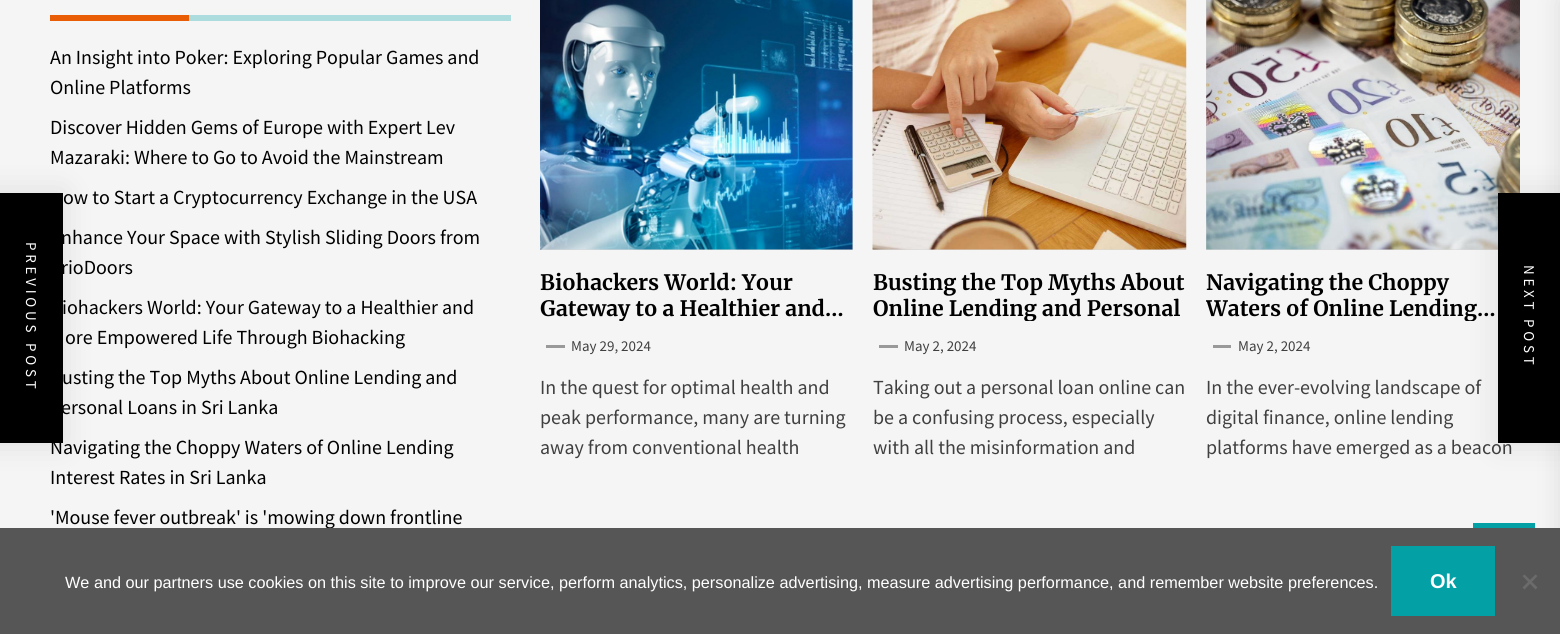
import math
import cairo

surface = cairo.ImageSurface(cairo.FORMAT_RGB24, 1560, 634)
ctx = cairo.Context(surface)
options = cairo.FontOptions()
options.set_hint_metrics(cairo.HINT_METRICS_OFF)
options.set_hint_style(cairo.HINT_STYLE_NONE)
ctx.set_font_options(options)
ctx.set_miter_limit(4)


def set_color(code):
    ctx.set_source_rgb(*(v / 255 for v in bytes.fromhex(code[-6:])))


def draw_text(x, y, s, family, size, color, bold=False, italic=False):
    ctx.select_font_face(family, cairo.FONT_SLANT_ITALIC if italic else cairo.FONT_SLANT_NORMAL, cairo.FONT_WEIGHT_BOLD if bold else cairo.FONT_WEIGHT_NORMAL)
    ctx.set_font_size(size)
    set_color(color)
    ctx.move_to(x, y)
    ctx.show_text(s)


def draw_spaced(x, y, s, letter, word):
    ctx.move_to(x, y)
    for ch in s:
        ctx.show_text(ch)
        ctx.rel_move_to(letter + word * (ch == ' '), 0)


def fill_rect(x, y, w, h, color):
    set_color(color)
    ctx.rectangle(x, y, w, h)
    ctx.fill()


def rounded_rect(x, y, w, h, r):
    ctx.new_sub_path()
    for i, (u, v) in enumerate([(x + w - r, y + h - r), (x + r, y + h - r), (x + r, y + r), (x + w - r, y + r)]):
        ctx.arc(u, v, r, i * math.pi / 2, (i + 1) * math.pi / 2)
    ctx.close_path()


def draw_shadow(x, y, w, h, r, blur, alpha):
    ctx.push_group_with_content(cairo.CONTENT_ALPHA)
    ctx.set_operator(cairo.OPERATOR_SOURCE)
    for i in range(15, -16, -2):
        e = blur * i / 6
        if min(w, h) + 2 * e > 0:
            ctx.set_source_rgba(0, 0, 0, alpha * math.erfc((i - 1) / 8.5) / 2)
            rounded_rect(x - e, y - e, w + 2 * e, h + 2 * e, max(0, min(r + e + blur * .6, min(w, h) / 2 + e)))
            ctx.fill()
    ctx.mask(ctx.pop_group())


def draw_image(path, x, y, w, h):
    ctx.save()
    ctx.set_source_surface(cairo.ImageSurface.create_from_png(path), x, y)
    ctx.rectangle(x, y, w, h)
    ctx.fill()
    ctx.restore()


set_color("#f5f5f5")
ctx.paint()
fill_rect(50, 15, 139, 6, "#e85d05")
fill_rect(189, 15, 322, 6, "#acdcdd")
draw_text(50, 64, "An Insight into Poker: Exploring Popular Games and", "Source Sans Pro", 20, "#000000")
draw_text(50, 94, "Online Platforms", "Source Sans Pro", 20, "#000000")
draw_text(50, 134, "Discover Hidden Gems of Europe with Expert Lev", "Source Sans Pro", 20, "#000000")
draw_text(50, 164, "Mazaraki: Where to Go to Avoid the Mainstream", "Source Sans Pro", 20, "#000000")
draw_text(63, 204, "ow to Start a Cryptocurrency Exchange in the USA", "Source Sans Pro", 20, "#000000")
draw_text(61, 244, "nhance Your Space with Stylish Sliding Doors from", "Source Sans Pro", 20, "#000000")
draw_text(61, 274, "rioDoors", "Source Sans Pro", 20, "#000000")
draw_text(62, 314, "iohackers World: Your Gateway to a Healthier and", "Source Sans Pro", 20, "#000000")
draw_text(65, 344, "ore Empowered Life Through Biohacking", "Source Sans Pro", 20, "#000000")
draw_text(62, 384, "usting the Top Myths About Online Lending and", "Source Sans Pro", 20, "#000000")
draw_text(61, 414, "ersonal Loans in Sri Lanka", "Source Sans Pro", 20, "#000000")
draw_text(50, 454, "Navigating the Choppy Waters of Online Lending", "Source Sans Pro", 20, "#000000")
draw_text(50, 484, "Interest Rates in Sri Lanka", "Source Sans Pro", 20, "#000000")
draw_text(50, 524, "'Mouse fever outbreak' is 'mowing down frontline", "Source Sans Pro", 20, "#000000")
set_color("#000000")
draw_shadow(-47, 193, 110, 250, 0, 15.5, 0.1)
fill_rect(0, 193, 63, 250, "#000000")
ctx.set_font_size(15)
set_color("#ffffff")
ctx.save()
ctx.translate(26, 242)
ctx.rotate(90 * math.pi / 180)
draw_spaced(0, 0, "PREVIOUS POST", 3.75, 0)
ctx.restore()
fill_rect(540, 0, 313, 250, "#d8d8d8")
draw_image("assets/img1.png", 540, 0, 313, 250)
draw_text(540, 290, "Biohackers World: Your", "Merriweather", 21.25, "#000000", bold=True)
ctx.save()
ctx.rectangle(540, 270, 313, 51)
ctx.clip()
draw_text(540, 316, "Gateway to a Healthier and…", "Merriweather", 21.25, "#000000", bold=True)
ctx.restore()
fill_rect(546, 345, 19, 3, "#999999")
draw_text(571, 351, "May 29, 2024", "Source Sans Pro", 15, "#404040")
draw_text(540, 394, "In the quest for optimal health and", "Source Sans Pro", 20, "#404040")
draw_text(540, 424, "peak performance, many are turning", "Source Sans Pro", 20, "#404040")
draw_text(540, 454, "away from conventional health", "Source Sans Pro", 20, "#404040")
fill_rect(873, 249, 313, 1, "#d8d8d8")
draw_image("assets/img2.png", 872, 0, 315, 250)
draw_text(873, 290, "Busting the Top Myths About", "Merriweather", 21.25, "#000000", bold=True)
ctx.save()
ctx.rectangle(873, 270, 313, 51)
ctx.clip()
draw_text(873, 316, "Online Lending and Personal", "Merriweather", 21.25, "#000000", bold=True)
ctx.restore()
fill_rect(879, 345, 19, 3, "#999999")
draw_text(904, 351, "May 2, 2024", "Source Sans Pro", 15, "#404040")
draw_text(873, 394, "Taking out a personal loan online can", "Source Sans Pro", 20, "#404040")
draw_text(873, 424, "be a confusing process, especially", "Source Sans Pro", 20, "#404040")
draw_text(873, 454, "with all the misinformation and", "Source Sans Pro", 20, "#404040")
fill_rect(1206, 0, 292, 250, "#d8d8d8")
draw_image("assets/img3.png", 1206, 0, 314, 250)
draw_text(1206, 290, "Navigating the Choppy", "Merriweather", 21.25, "#000000", bold=True)
ctx.save()
ctx.rectangle(1206, 270, 314, 51)
ctx.clip()
draw_text(1206, 316, "Waters of Online Lending…", "Merriweather", 21.25, "#000000", bold=True)
ctx.restore()
fill_rect(1213, 345, 18, 3, "#999999")
draw_text(1238, 351, "May 2, 2024", "Source Sans Pro", 15, "#404040")
draw_text(1206, 394, "In the ever-evolving landscape of", "Source Sans Pro", 20, "#404040")
draw_text(1206, 424, "digital finance, online lending", "Source Sans Pro", 20, "#404040")
draw_text(1206, 454, "platforms have emerged as a beacon", "Source Sans Pro", 20, "#404040")
set_color("#000000")
draw_shadow(1498, 193, 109, 250, 0, 15.5, 0.1)
fill_rect(1498, 193, 62, 250, "#000000")
ctx.set_font_size(15)
set_color("#ffffff")
ctx.save()
ctx.translate(1524, 265)
ctx.rotate(90 * math.pi / 180)
draw_spaced(0, 0, "NEXT POST", 3.75, -1)
ctx.restore()
set_color("#000000")
draw_shadow(1560, 0, 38, 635, 0, 12.5, 0.1)
fill_rect(1473, 523, 62, 5, "#03a0a6")
fill_rect(0, 528, 1560, 106, "#565656")
draw_text(65, 588, "We and our partners use cookies on this site to improve our service, perform analytics, personalize advertising, measure advertising performance, and remember website preferences.", "Liberation Sans", 16.25, "#ffffff")
fill_rect(1391, 546, 104, 70, "#03a0a6")
draw_text(1430, 588, "Ok", "Liberation Sans", 20, "#ffffff", bold=True)
set_color("#6b6b6b")
ctx.new_path()
ctx.move_to(1535.5, 574.5)
ctx.line_to(1537.5, 576)
ctx.line_to(1524.5, 589.5)
ctx.line_to(1522.5, 587.5)
ctx.close_path()
ctx.fill()
ctx.new_path()
ctx.move_to(1522.5, 576)
ctx.line_to(1524.5, 574.5)
ctx.line_to(1537.5, 587.5)
ctx.line_to(1535.5, 589.5)
ctx.close_path()
ctx.fill()
surface.write_to_png("output.png")
